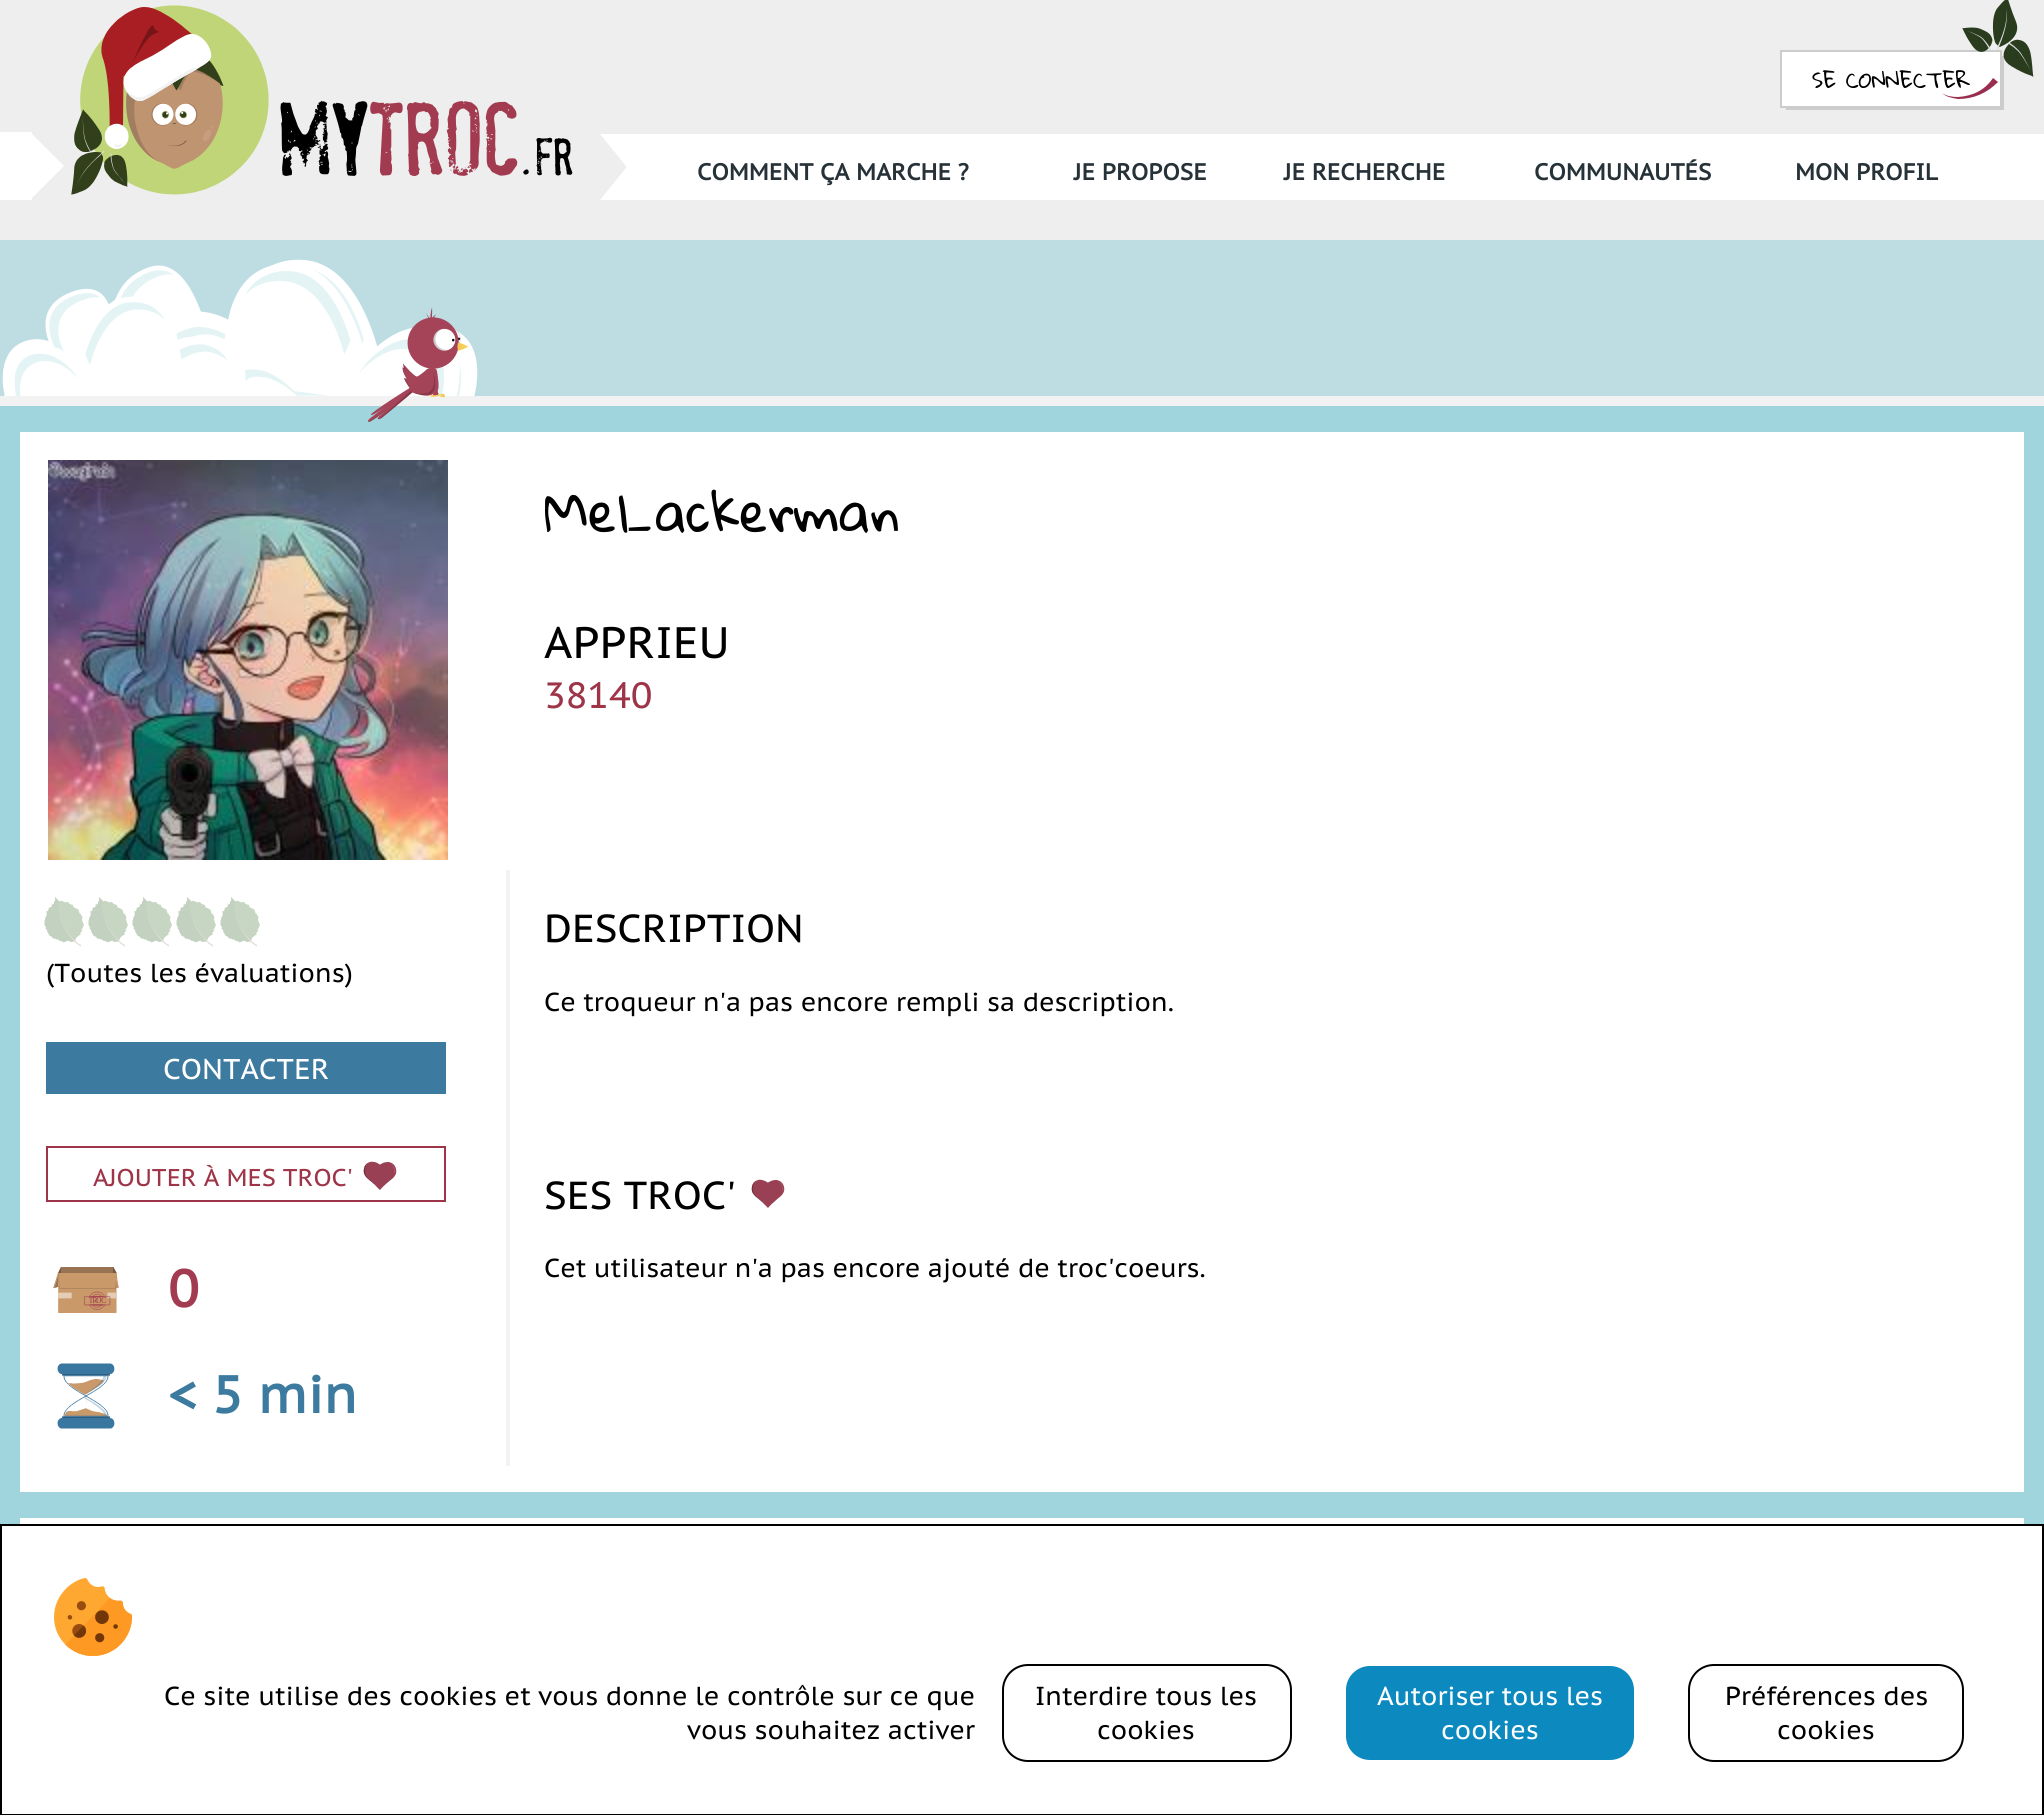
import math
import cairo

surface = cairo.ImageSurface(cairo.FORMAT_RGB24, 2044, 1815)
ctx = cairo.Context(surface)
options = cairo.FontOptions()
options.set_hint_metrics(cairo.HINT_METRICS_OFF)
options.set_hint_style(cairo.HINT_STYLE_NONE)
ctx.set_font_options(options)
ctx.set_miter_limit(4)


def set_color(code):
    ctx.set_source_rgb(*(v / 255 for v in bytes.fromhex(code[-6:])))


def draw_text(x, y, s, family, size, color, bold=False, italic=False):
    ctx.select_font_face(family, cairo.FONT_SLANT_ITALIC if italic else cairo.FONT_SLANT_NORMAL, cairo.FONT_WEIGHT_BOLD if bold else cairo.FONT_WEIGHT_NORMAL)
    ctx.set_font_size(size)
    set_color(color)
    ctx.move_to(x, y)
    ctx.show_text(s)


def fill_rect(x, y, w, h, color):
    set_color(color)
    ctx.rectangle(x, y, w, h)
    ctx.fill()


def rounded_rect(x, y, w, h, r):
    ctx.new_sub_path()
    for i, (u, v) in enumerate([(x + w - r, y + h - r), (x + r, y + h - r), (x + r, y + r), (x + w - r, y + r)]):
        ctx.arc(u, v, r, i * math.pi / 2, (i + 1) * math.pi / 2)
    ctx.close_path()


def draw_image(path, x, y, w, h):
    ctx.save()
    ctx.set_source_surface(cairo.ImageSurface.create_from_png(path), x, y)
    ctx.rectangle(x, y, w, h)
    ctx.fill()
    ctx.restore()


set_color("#bddde3")
ctx.paint()
fill_rect(0, 0, 2044, 240, "#eeeeee")
set_color("#cccccc")
ctx.new_path()
ctx.move_to(1786, 108)
ctx.line_to(1786, 110)
ctx.line_to(2004, 110)
ctx.line_to(2004, 56)
ctx.line_to(2002, 56)
ctx.line_to(2002, 108)
ctx.close_path()
ctx.fill()
set_color("#ffffff")
ctx.rectangle(1781, 51, 220, 56)
ctx.fill_preserve()
set_color("#cccccc")
ctx.stroke()
draw_text(1812, 88, "SE CONNECTER", "Gloria Hallelujah", 20.75, "#000000")
draw_image("assets/img1.png", 1962, 0, 72, 77)
set_color("#992e4f")
ctx.new_path()
ctx.move_to(1942, 93)
ctx.curve_to(1946, 96, 1952, 97, 1958, 97)
ctx.curve_to(1973, 96, 1985, 90, 1993, 78)
ctx.line_to(1998, 82)
ctx.curve_to(1987, 93, 1974, 99, 1958, 99)
ctx.curve_to(1952, 98, 1946, 97, 1942, 93)
ctx.fill()
fill_rect(0, 132, 32, 68, "#ffffff")
ctx.new_path()
ctx.move_to(30, 200)
ctx.line_to(30, 132)
ctx.line_to(64, 166)
ctx.close_path()
ctx.fill()
draw_image("assets/img2.png", 71, 5, 198, 190)
draw_text(278, 175, "My", "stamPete", 91, "#000000")
draw_text(369, 175, "Troc", "stamPete", 91, "#a23b50")
draw_text(519, 175, ".Fr", "stamPete", 46, "#000000")
fill_rect(626, 134, 1418, 66, "#ffffff")
ctx.new_path()
ctx.move_to(600, 134)
ctx.line_to(626, 134)
ctx.line_to(626, 166)
ctx.close_path()
ctx.fill()
ctx.new_path()
ctx.move_to(626, 200)
ctx.line_to(600, 200)
ctx.line_to(626, 168)
ctx.close_path()
ctx.fill()
draw_text(697, 180, "COMMENT ÇA MARCHE ?", "PT Sans Caption", 23.1, "#263238", bold=True)
draw_text(1074, 180, "JE PROPOSE", "PT Sans Caption", 23.1, "#263238", bold=True)
draw_text(1284, 180, "JE RECHERCHE", "PT Sans Caption", 23.1, "#263238", bold=True)
draw_text(1534, 180, "COMMUNAUTÉS", "PT Sans Caption", 23.1, "#263238", bold=True)
draw_text(1795, 180, "MON PROFIL", "PT Sans Caption", 23.1, "#263238", bold=True)
draw_image("assets/img4.png", 200, 259, 278, 137)
draw_image("assets/img7.png", 3, 297, 114, 97)
draw_image("assets/img3.png", 4, 265, 198, 131)
draw_image("assets/img5.png", 170, 265, 290, 131)
draw_image("assets/img6.png", 2, 296, 325, 100)
fill_rect(0, 406, 2044, 1118, "#a0d5dd")
fill_rect(0, 396, 2044, 10, "#f2f2f2")
draw_image("assets/img8.png", 368, 308, 100, 114)
fill_rect(20, 432, 2004, 1060, "#ffffff")
draw_image("assets/img9.png", 48, 460, 400, 400)
draw_text(544, 532, "Mel_ackerman", "Gloria Hallelujah", 52, "#000000")
draw_text(544, 658, "APPRIEU", "PT Sans Caption", 44, "#000000")
draw_text(544, 708, "38140", "PT Sans Caption", 36.5, "#9e3448")
fill_rect(506, 870, 4, 596, "#f3f3f3")
draw_image("assets/img10.png", 44, 897, 40, 50)
draw_image("assets/img10.png", 88, 897, 40, 50)
draw_image("assets/img10.png", 132, 897, 40, 50)
draw_image("assets/img10.png", 176, 897, 40, 50)
draw_image("assets/img11.png", 220, 897, 40, 50)
draw_text(46, 982, "(Toutes les évaluations)", "PT Sans Caption", 26, "#000000")
fill_rect(46, 1042, 400, 52, "#3c7a9f")
draw_text(163, 1079, "CONTACTER", "PT Sans Caption", 28.5, "#ffffff")
ctx.rectangle(47, 1147, 398, 54)
set_color("#9e3448")
ctx.stroke()
draw_text(93, 1186, "AJOUTER À MES TROC'", "PT Sans Caption", 24.25, "#9e3448")
draw_image("assets/img12.png", 363, 1161, 34, 29)
draw_image("assets/img13.png", 53, 1267, 66, 46)
draw_text(168, 1307, "0", "PT Sans Caption", 52, "#a23b50", bold=True)
draw_image("assets/img14.png", 57, 1363, 58, 66)
draw_text(168, 1413, "< 5 min", "PT Sans Caption", 52, "#3c7a9f", bold=True)
draw_text(544, 942, "DESCRIPTION", "PT Sans Caption", 39, "#000000")
draw_text(544, 1011, "Ce troqueur n'a pas encore rempli sa description.", "PT Sans Caption", 26, "#000000")
draw_text(544, 1209, "SES TROC'", "PT Sans Caption", 39, "#000000")
draw_image("assets/img15.png", 751, 1179, 34, 29)
draw_text(544, 1277, "Cet utilisateur n'a pas encore ajouté de troc'coeurs.", "PT Sans Caption", 26, "#000000")
fill_rect(20, 1518, 2004, 6, "#ffffff")
ctx.rectangle(1, 1525, 2042, 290)
ctx.fill_preserve()
set_color("#000000")
ctx.stroke()
draw_image("assets/img16.png", 54, 1578, 78, 78)
draw_text(164, 1705, "Ce site utilise des cookies et vous donne le contrôle sur ce que", "PT Sans Caption", 26, "#000000")
draw_text(687, 1739, "vous souhaitez activer", "PT Sans Caption", 26, "#000000")
rounded_rect(1003, 1665, 288, 96, 25)
ctx.stroke()
draw_text(1035, 1705, "Interdire tous les", "PT Sans Caption", 26, "#000000")
draw_text(1097, 1739, "cookies", "PT Sans Caption", 26, "#000000")
set_color("#0c8abf")
rounded_rect(1345, 1665, 290, 96, 25)
ctx.fill_preserve()
set_color("#ffffff")
ctx.stroke()
draw_text(1377, 1705, "Autoriser tous les", "PT Sans Caption", 26, "#ffffff")
draw_text(1441, 1739, "cookies", "PT Sans Caption", 26, "#ffffff")
rounded_rect(1689, 1665, 274, 96, 25)
set_color("#000000")
ctx.stroke()
draw_text(1725, 1705, "Préférences des", "PT Sans Caption", 26, "#000000")
draw_text(1777, 1739, "cookies", "PT Sans Caption", 26, "#000000")
surface.write_to_png("output.png")
